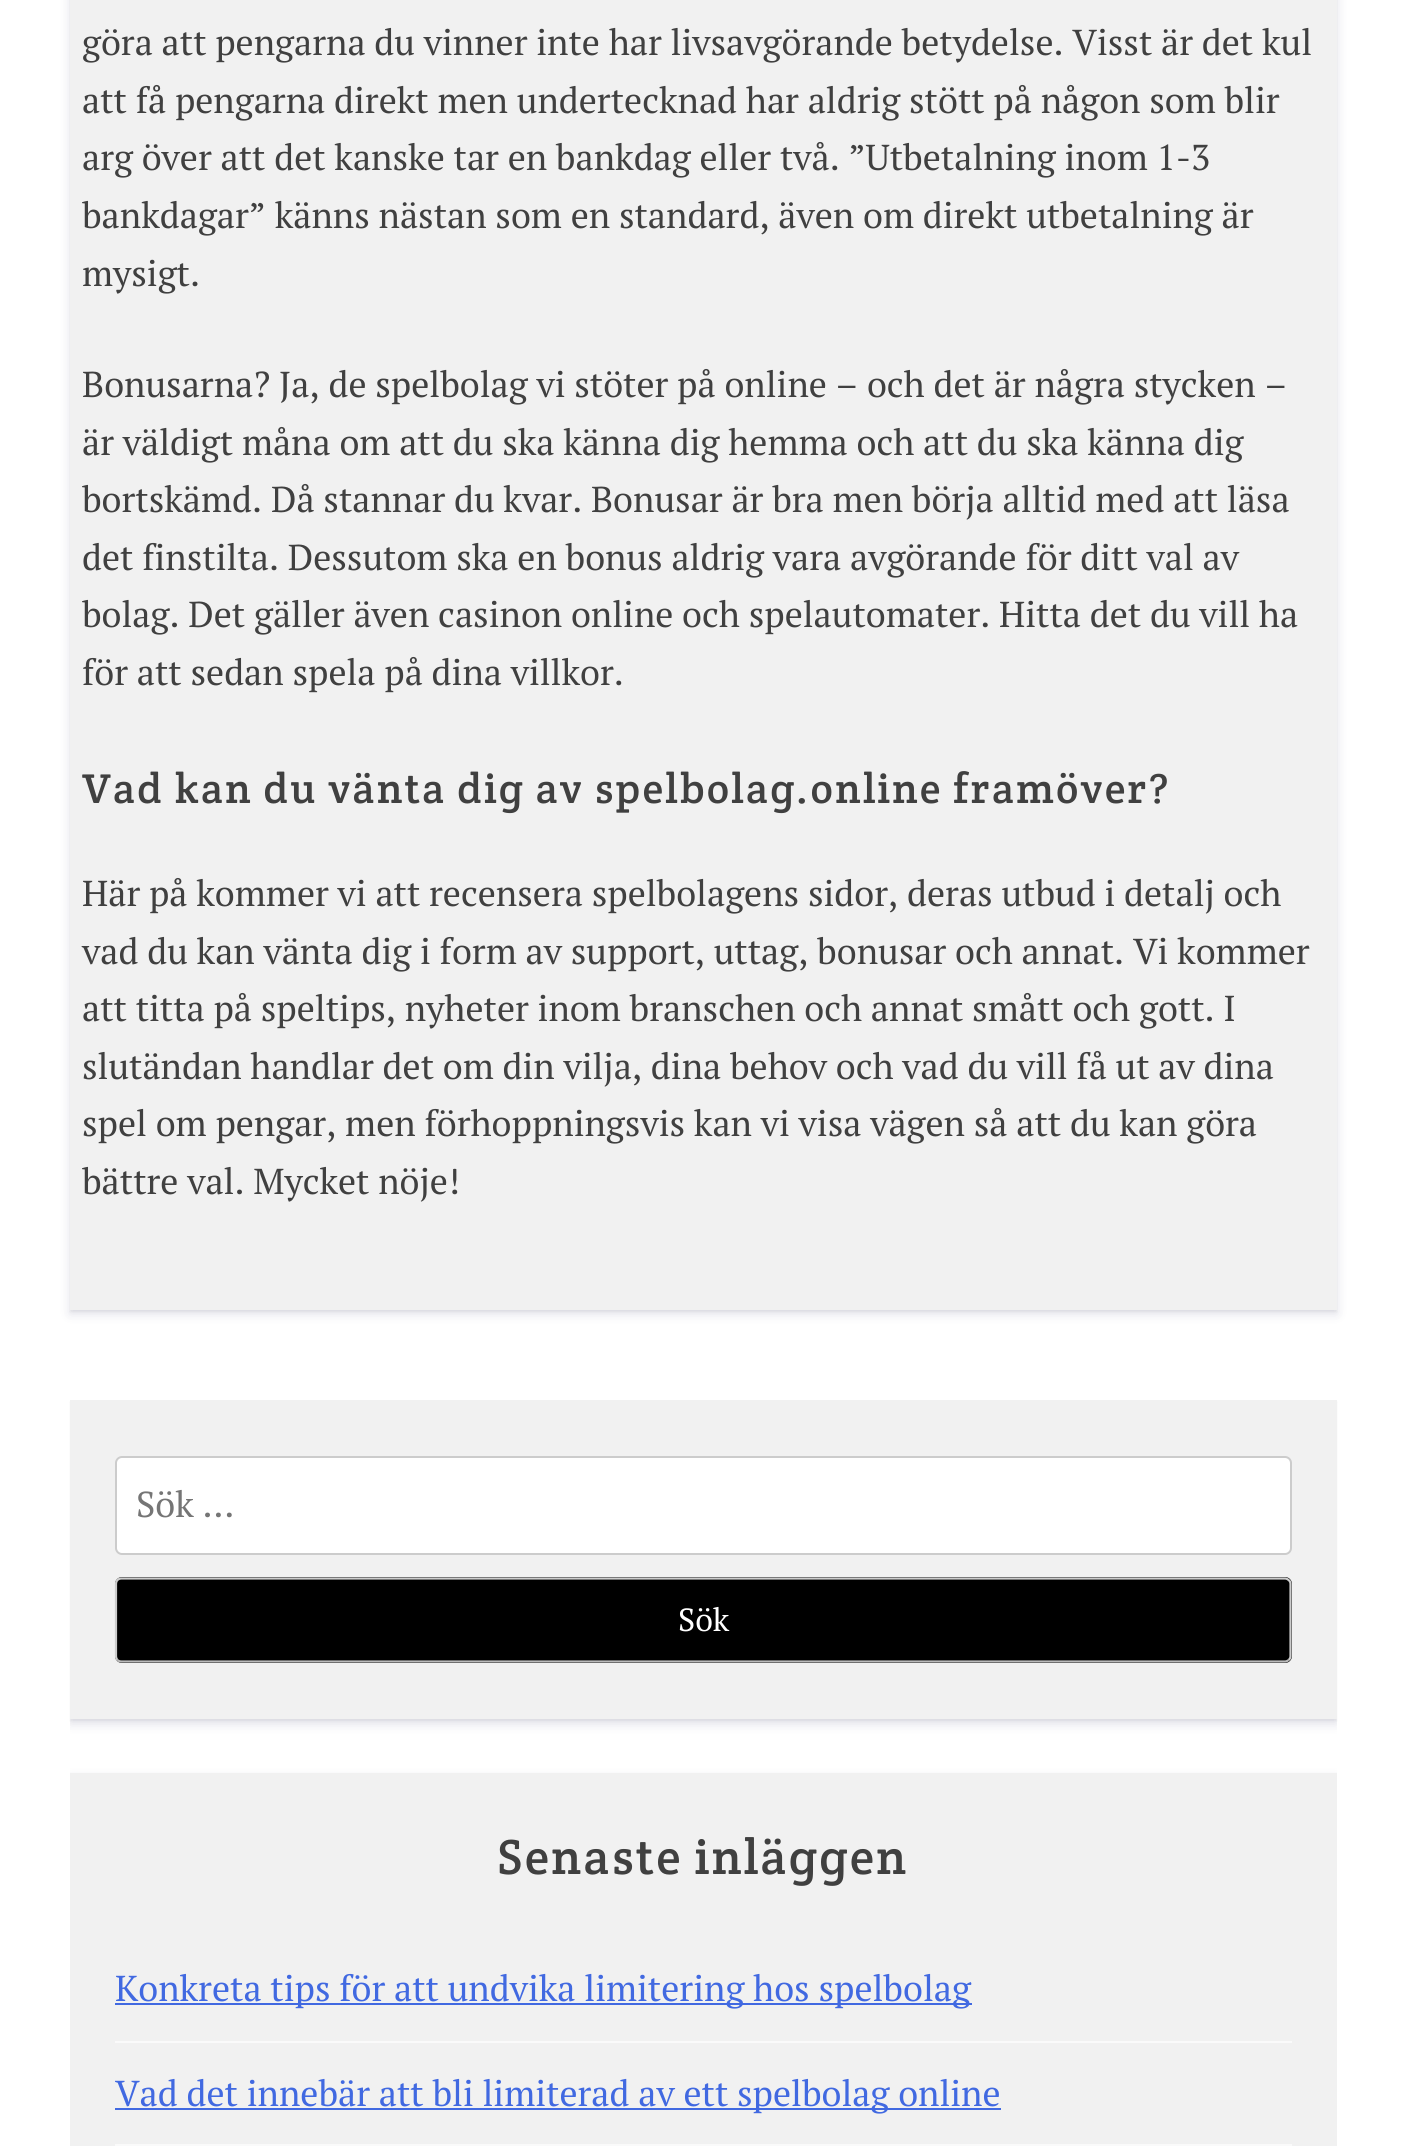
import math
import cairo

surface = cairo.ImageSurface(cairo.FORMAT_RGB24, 1405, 2146)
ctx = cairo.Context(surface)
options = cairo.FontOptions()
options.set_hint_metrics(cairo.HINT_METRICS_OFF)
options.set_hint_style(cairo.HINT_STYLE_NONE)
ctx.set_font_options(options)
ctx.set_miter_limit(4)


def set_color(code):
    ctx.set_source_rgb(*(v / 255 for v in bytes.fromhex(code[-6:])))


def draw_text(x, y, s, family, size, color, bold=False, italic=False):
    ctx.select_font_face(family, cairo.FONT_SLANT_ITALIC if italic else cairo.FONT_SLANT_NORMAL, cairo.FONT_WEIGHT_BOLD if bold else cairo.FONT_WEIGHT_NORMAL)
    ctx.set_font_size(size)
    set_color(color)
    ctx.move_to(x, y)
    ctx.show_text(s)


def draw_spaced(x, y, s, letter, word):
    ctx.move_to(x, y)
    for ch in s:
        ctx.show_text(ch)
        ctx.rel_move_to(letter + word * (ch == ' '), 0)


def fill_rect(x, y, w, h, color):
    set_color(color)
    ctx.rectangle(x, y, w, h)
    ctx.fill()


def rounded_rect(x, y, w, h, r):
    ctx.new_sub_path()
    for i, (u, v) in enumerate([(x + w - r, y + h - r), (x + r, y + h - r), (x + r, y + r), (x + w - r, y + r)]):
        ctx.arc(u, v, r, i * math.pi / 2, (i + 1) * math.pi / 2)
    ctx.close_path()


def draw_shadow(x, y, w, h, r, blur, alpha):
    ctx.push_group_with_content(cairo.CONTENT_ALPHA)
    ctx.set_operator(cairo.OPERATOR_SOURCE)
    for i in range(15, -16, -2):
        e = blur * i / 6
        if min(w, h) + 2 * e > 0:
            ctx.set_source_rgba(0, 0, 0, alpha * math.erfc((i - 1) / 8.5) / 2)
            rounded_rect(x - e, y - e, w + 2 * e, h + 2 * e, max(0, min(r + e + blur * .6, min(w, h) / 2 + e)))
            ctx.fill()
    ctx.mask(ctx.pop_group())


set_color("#ffffff")
ctx.paint()
set_color("#000000")
draw_shadow(70, -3, 1267, 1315, 0, 1, 0.05)
set_color("#323269")
draw_shadow(70, -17, 1267, 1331, 0, 5.5, 0.15)
fill_rect(70, 0, 1267, 1310, "#f1f1f1")
draw_text(82, 55, "göra att pengarna du vinner inte har livsavgörande betydelse. Visst är det kul", "PT Serif", 36, "#404040")
draw_text(82, 113, "att få pengarna direkt men undertecknad har aldrig stött på någon som blir", "PT Serif", 36, "#404040")
draw_text(82, 170, "arg över att det kanske tar en bankdag eller två. ”Utbetalning inom 1-3", "PT Serif", 36, "#404040")
draw_text(82, 228, "bankdagar” känns nästan som en standard, även om direkt utbetalning är", "PT Serif", 36, "#404040")
draw_text(82, 286, "mysigt.", "PT Serif", 36, "#404040")
draw_text(82, 397, "Bonusarna? Ja, de spelbolag vi stöter på online – och det är några stycken –", "PT Serif", 36, "#404040")
draw_text(82, 455, "är väldigt måna om att du ska känna dig hemma och att du ska känna dig", "PT Serif", 36, "#404040")
draw_text(82, 512, "bortskämd. Då stannar du kvar. Bonusar är bra men börja alltid med att läsa", "PT Serif", 36, "#404040")
draw_text(82, 570, "det finstilta. Dessutom ska en bonus aldrig vara avgörande för ditt val av", "PT Serif", 36, "#404040")
draw_text(82, 627, "bolag. Det gäller även casinon online och spelautomater. Hitta det du vill ha", "PT Serif", 36, "#404040")
draw_text(82, 685, "för att sedan spela på dina villkor.", "PT Serif", 36, "#404040")
ctx.select_font_face("Crete Round")
ctx.set_font_size(42.1)
draw_spaced(82, 803, "Vad kan du vänta dig av spelbolag.online framöver?", 2.25, 0)
draw_text(82, 906, "Här på kommer vi att recensera spelbolagens sidor, deras utbud i detalj och", "PT Serif", 36, "#404040")
draw_text(82, 964, "vad du kan vänta dig i form av support, uttag, bonusar och annat. Vi kommer", "PT Serif", 36, "#404040")
draw_text(82, 1021, "att titta på speltips, nyheter inom branschen och annat smått och gott. I", "PT Serif", 36, "#404040")
draw_text(82, 1079, "slutändan handlar det om din vilja, dina behov och vad du vill få ut av dina", "PT Serif", 36, "#404040")
draw_text(82, 1136, "spel om pengar, men förhoppningsvis kan vi visa vägen så att du kan göra", "PT Serif", 36, "#404040")
draw_text(82, 1194, "bättre val. Mycket nöje!", "PT Serif", 36, "#404040")
set_color("#000000")
draw_shadow(70, 1402, 1267, 319, 0, 1, 0.05)
ctx.save()
ctx.rectangle(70, 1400, 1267, 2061)
ctx.clip()
set_color("#323269")
draw_shadow(70, 1404, 1267, 320, 0, 5.5, 0.15)
ctx.restore()
fill_rect(70, 1400, 1267, 319, "#f1f1f1")
set_color("#ffffff")
rounded_rect(116, 1457, 1175, 97, 6)
ctx.fill_preserve()
set_color("#cccccc")
ctx.stroke()
draw_text(136, 1517, "Sök …", "PT Serif", 36, "#757575")
set_color("#000000")
rounded_rect(115, 1577, 1177, 86, 7)
ctx.fill()
ctx.new_path()
ctx.move_to(1288.5, 1660)
ctx.curve_to(1287.5, 1661, 1286, 1661.5, 1285, 1661.5)
ctx.line_to(121.5, 1661.5)
ctx.curve_to(120, 1661.5, 118.5, 1661, 117.5, 1660)
set_color("#bbbbbb")
ctx.set_line_width(2.2)
ctx.stroke()
ctx.new_path()
ctx.move_to(117.5, 1660)
ctx.curve_to(116.5, 1659, 116, 1657.5, 116, 1656)
ctx.line_to(116, 1584)
ctx.curve_to(116, 1582.5, 116.5, 1581, 117.5, 1580)
ctx.curve_to(118.5, 1579, 120, 1578.5, 121.5, 1578.5)
ctx.line_to(1285, 1578.5)
ctx.curve_to(1286, 1578.5, 1287.5, 1579, 1288.5, 1580)
ctx.curve_to(1290, 1581, 1290.5, 1582.5, 1290.5, 1584)
ctx.line_to(1290.5, 1656)
ctx.curve_to(1290.5, 1657.5, 1290, 1659, 1288.5, 1660)
set_color("#cccccc")
ctx.stroke()
draw_text(678, 1631, "Sök", "PT Serif", 32, "#ffffff")
ctx.save()
ctx.rectangle(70, 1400, 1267, 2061)
ctx.clip()
set_color("#323269")
draw_shadow(70, 1778, 1267, 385, 0, 5.5, 0.15)
ctx.restore()
fill_rect(70, 1773, 1267, 373, "#f1f1f1")
ctx.select_font_face("Crete Round")
ctx.set_font_size(49.5)
set_color("#404040")
draw_spaced(497, 1874, "Senaste inläggen", 2.25, 0)
fill_rect(115, 2041, 1177, 2, "#fafafa")
fill_rect(115, 2003, 857, 2, "#4169e1")
draw_text(115, 2001, "Konkreta tips för att undvika limitering hos spelbolag", "PT Serif", 36, "#4169e1")
fill_rect(115, 2144, 1177, 2, "#fafafa")
fill_rect(115, 2108, 886, 2, "#4169e1")
draw_text(115, 2106, "Vad det innebär att bli limiterad av ett spelbolag online", "PT Serif", 36, "#4169e1")
surface.write_to_png("output.png")
